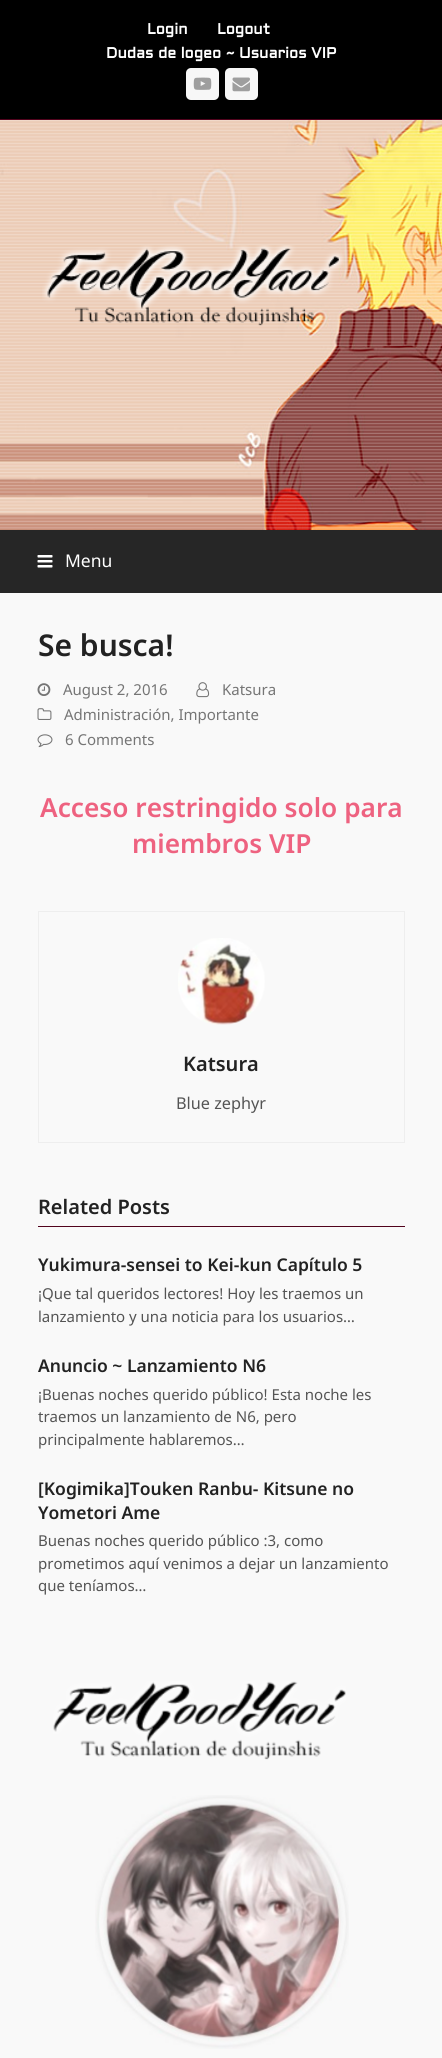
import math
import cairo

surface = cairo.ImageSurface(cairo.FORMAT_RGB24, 442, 2058)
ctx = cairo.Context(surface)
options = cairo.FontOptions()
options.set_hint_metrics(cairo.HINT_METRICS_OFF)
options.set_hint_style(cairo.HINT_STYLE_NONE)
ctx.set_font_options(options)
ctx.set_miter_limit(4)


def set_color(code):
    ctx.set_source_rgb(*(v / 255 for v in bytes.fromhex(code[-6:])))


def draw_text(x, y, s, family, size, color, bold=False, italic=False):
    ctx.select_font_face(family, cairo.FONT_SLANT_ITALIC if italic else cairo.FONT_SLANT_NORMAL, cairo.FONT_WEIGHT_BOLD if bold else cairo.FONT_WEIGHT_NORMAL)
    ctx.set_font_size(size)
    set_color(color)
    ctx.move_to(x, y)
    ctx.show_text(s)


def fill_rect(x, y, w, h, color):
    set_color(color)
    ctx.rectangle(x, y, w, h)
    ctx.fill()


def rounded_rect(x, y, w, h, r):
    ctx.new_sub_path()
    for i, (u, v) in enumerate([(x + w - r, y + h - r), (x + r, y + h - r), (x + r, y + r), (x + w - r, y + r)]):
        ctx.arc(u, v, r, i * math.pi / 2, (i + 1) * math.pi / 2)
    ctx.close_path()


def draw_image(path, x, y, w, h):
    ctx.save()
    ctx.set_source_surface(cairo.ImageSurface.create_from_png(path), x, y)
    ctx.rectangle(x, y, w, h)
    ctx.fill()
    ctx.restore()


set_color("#f9f9f9")
ctx.paint()
fill_rect(0, 0, 442, 119, "#000000")
fill_rect(0, 119, 442, 1, "#51031d")
draw_text(147, 34, "Login", "Aldrich", 15, "#ffffff", bold=True)
draw_text(217, 34, "Logout", "Aldrich", 15, "#ffffff", bold=True)
draw_text(106, 58, "Dudas de logeo ~ Usuarios VIP", "Aldrich", 15, "#ffffff", bold=True)
set_color("#f7f7f7")
rounded_rect(186, 68, 33, 32, 5)
ctx.fill()
draw_image("assets/img1.png", 193, 77, 19, 13)
rounded_rect(225, 68, 33, 32, 5)
ctx.fill()
draw_image("assets/img2.png", 232, 77, 18, 15)
draw_image("assets/img3.png", 0, 120, 442, 410)
draw_image("assets/img4.png", 42, 245, 302, 81)
fill_rect(0, 530, 442, 63, "#262626")
draw_image("assets/img5.png", 37, 555, 16, 13)
draw_text(65, 567, "Menu", "Noto Sans", 17.5, "#ffffff")
draw_text(38, 656, "Se busca!", "Noto Sans SemiBold", 30, "#222222")
draw_image("assets/img6.png", 37, 683, 14, 13)
draw_text(63, 695, "August 2, 2016", "Noto Sans", 15, "#757575")
draw_image("assets/img7.png", 196, 682, 14, 16)
draw_text(222, 695, "Katsura", "Noto Sans", 15, "#757575")
draw_image("assets/img8.png", 37, 708, 15, 12)
draw_text(64, 720, "Administración, Importante", "Noto Sans", 15, "#757575")
draw_image("assets/img9.png", 37, 734, 16, 14)
draw_text(65, 745, "6 Comments", "Noto Sans", 15, "#757575")
draw_text(40, 817, "Acceso restringido solo para", "Noto Sans SemiBold", 26.25, "#ee6280")
draw_text(132, 853, "miembros VIP", "Noto Sans SemiBold", 26.25, "#ee6280")
ctx.rectangle(38.5, 911.5, 366, 231)
set_color("#eeeeee")
ctx.set_line_width(1)
ctx.stroke()
draw_image("assets/img10.png", 178, 938, 87, 87)
draw_text(183, 1071, "Katsura", "Noto Sans SemiBold", 20, "#222222")
draw_text(176, 1109, "Blue zephyr", "Noto Sans", 16.25, "#545454")
fill_rect(38, 1226, 367, 1, "#51031d")
draw_text(38, 1214, "Related Posts", "Noto Sans SemiBold", 20, "#222222")
draw_text(38, 1271, "Yukimura-sensei to Kei-kun Capítulo 5", "Noto Sans SemiBold", 17.5, "#222222")
draw_text(38, 1299, "¡Que tal queridos lectores! Hoy les traemos un", "Noto Sans", 15, "#545454")
draw_text(38, 1322, "lanzamiento y una noticia para los usuarios…", "Noto Sans", 15, "#545454")
draw_text(38, 1372, "Anuncio ~ Lanzamiento N6", "Noto Sans SemiBold", 17.5, "#222222")
draw_text(38, 1400, "¡Buenas noches querido público! Esta noche les", "Noto Sans", 15, "#545454")
draw_text(38, 1422, "traemos un lanzamiento de N6, pero", "Noto Sans", 15, "#545454")
draw_text(38, 1445, "principalmente hablaremos…", "Noto Sans", 15, "#545454")
draw_text(38, 1495, "[Kogimika]Touken Ranbu- Kitsune no", "Noto Sans SemiBold", 17.5, "#222222")
draw_text(38, 1519, "Yometori Ame", "Noto Sans SemiBold", 17.5, "#222222")
draw_text(38, 1546, "Buenas noches querido público :3, como", "Noto Sans", 15, "#545454")
draw_text(38, 1569, "prometimos aquí venimos a dejar un lanzamiento", "Noto Sans", 15, "#545454")
draw_text(38, 1591, "que teníamos…", "Noto Sans", 15, "#545454")
draw_image("assets/img11.png", 53, 1681, 293, 79)
draw_image("assets/img12.png", 95, 1795, 254, 254)
surface.write_to_png("output.png")
